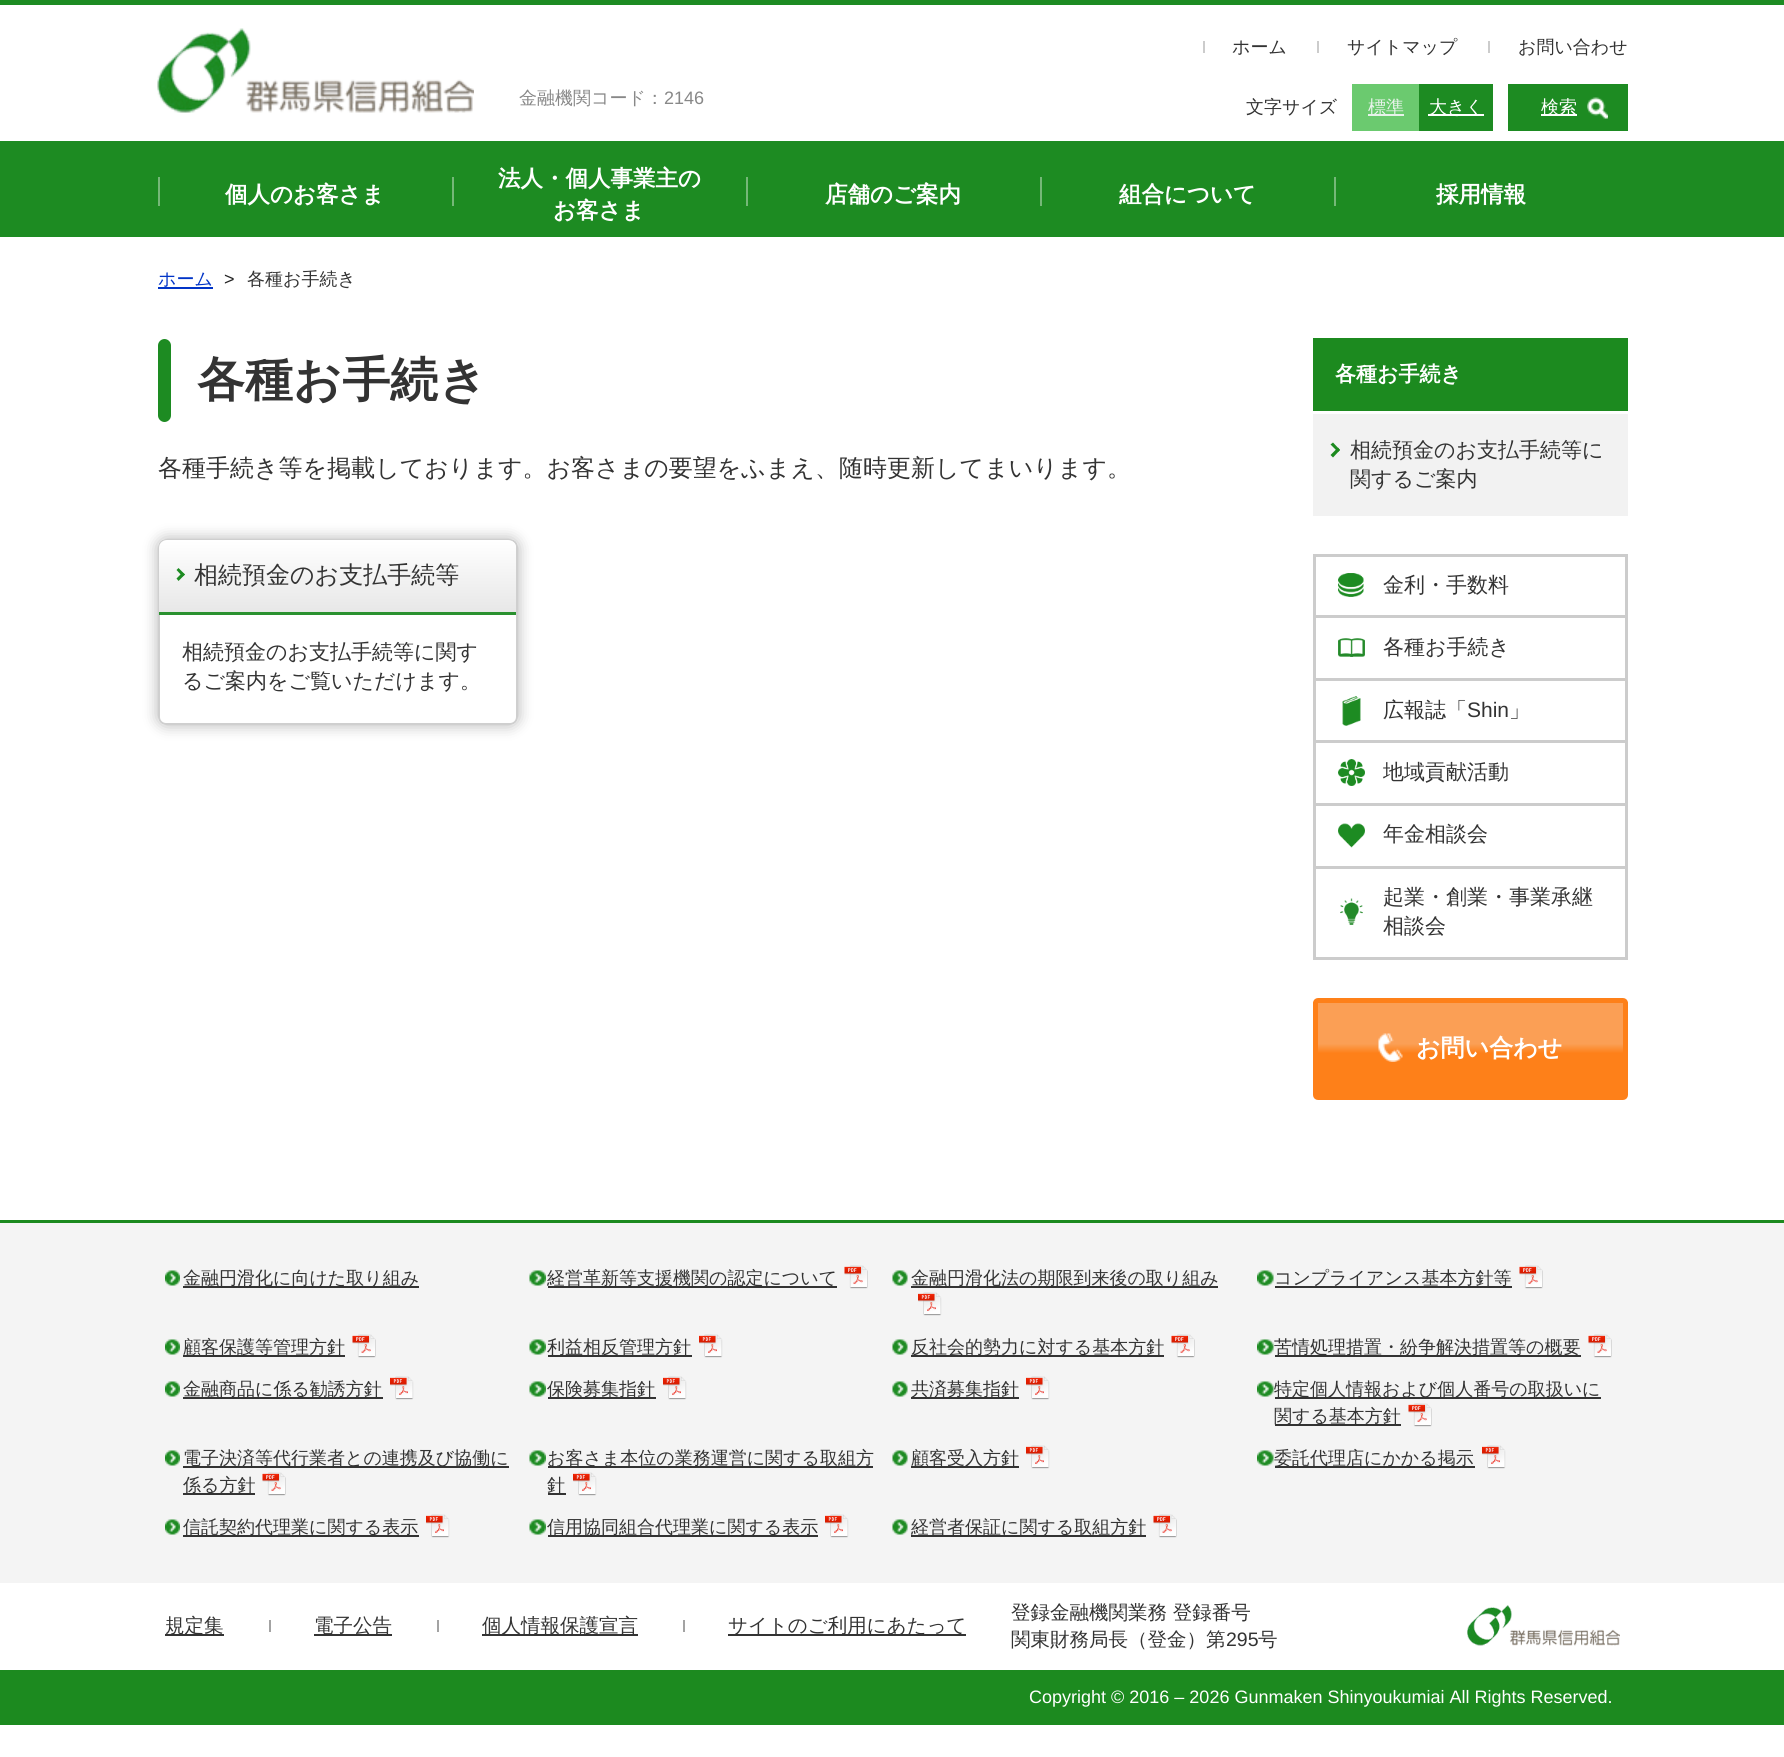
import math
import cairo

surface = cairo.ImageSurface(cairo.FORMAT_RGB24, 1784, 1757)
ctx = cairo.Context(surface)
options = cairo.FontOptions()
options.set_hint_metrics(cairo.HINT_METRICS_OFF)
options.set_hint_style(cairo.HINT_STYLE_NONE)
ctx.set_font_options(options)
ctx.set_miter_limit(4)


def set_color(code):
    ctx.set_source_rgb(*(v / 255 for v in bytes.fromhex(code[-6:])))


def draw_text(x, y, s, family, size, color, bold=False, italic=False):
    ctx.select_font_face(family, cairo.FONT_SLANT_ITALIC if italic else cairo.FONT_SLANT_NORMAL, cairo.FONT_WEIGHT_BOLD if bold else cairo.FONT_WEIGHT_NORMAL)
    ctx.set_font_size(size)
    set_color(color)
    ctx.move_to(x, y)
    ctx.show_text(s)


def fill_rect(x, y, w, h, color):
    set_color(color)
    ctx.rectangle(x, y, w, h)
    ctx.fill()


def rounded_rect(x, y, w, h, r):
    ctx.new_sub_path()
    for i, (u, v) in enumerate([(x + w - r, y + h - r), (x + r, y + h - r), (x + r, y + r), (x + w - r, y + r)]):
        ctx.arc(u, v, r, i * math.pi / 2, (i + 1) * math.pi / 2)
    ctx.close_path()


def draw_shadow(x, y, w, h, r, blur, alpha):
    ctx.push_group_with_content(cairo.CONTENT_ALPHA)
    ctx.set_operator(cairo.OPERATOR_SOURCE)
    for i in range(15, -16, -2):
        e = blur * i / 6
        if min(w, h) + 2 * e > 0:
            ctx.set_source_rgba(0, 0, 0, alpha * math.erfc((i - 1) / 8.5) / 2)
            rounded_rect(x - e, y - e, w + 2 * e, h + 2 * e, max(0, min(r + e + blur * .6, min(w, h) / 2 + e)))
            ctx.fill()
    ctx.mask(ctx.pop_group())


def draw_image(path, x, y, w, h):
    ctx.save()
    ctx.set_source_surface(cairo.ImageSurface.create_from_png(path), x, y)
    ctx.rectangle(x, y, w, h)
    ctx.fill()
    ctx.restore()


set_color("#ffffff")
ctx.paint()
fill_rect(0, 141, 1784, 96, "#1d8b22")
fill_rect(0, 0, 1784, 5, "#1d8b22")
fill_rect(1203, 41, 2, 12, "#cccccc")
draw_text(1232, 53, "ホーム", "WenQuanYi Zen Hei Medium", 18, "#333333")
fill_rect(1317, 41, 2, 12, "#cccccc")
draw_text(1347, 53, "サイトマップ", "WenQuanYi Zen Hei Medium", 18, "#333333")
fill_rect(1488, 41, 2, 12, "#cccccc")
draw_text(1518, 53, "お問い合わせ", "WenQuanYi Zen Hei Medium", 18, "#333333")
fill_rect(1508, 84, 120, 47, "#1d8b22")
draw_image("assets/img1.png", 1587, 97, 21, 22)
fill_rect(1541, 114, 36, 2, "#ffffff")
draw_text(1541, 113, "検索", "WenQuanYi Zen Hei Medium", 18, "#ffffff")
fill_rect(158, 177, 2, 29, "#75b878")
draw_text(225, 202, "個人のお客さま", "WenQuanYi Zen Hei", 22.5, "#ffffff", bold=True)
fill_rect(452, 177, 2, 29, "#75b878")
draw_text(498, 186, "法人・個人事業主の", "WenQuanYi Zen Hei", 22.5, "#ffffff", bold=True)
draw_text(553, 218, "お客さま", "WenQuanYi Zen Hei", 22.5, "#ffffff", bold=True)
fill_rect(746, 177, 2, 29, "#75b878")
draw_text(825, 202, "店舗のご案内", "WenQuanYi Zen Hei", 22.5, "#ffffff", bold=True)
fill_rect(1040, 177, 2, 29, "#75b878")
draw_text(1119, 202, "組合について", "WenQuanYi Zen Hei", 22.5, "#ffffff", bold=True)
fill_rect(1334, 177, 2, 29, "#75b878")
draw_text(1436, 202, "採用情報", "WenQuanYi Zen Hei", 22.5, "#ffffff", bold=True)
draw_image("assets/img2.png", 157, 28, 317, 85)
draw_text(519, 104, "金融機関コード：", "WenQuanYi Zen Hei Medium", 18, "#888888")
draw_text(664, 104, "2146", "Liberation Sans", 18, "#888888")
draw_text(1246, 113, "文字サイズ", "WenQuanYi Zen Hei Medium", 18, "#333333")
fill_rect(1352, 84, 67, 47, "#6bca6f")
fill_rect(1368, 114, 36, 2, "#e7f2ea")
draw_text(1368, 113, "標準", "WenQuanYi Zen Hei Medium", 18, "#e7f2ea")
fill_rect(1419, 84, 74, 47, "#1d8b22")
fill_rect(1428, 114, 56, 2, "#ffffff")
draw_text(1429, 113, "大きく", "WenQuanYi Zen Hei Medium", 18, "#ffffff")
draw_text(158, 285, "ホーム", "WenQuanYi Zen Hei Medium", 18, "#0134c7")
fill_rect(158, 287, 55, 2, "#0134c7")
draw_text(224, 285, ">", "Liberation Sans", 18, "#222222")
draw_text(247, 285, "各種お手続き", "WenQuanYi Zen Hei Medium", 18, "#333333")
fill_rect(158, 354, 13, 53, "#1d8b22")
ctx.new_path()
ctx.move_to(164.5, 339)
ctx.curve_to(168, 339, 171, 342, 171, 345.5)
ctx.line_to(171, 354)
ctx.line_to(158, 354)
ctx.line_to(158, 345.5)
ctx.curve_to(158, 342, 161, 339, 164.5, 339)
ctx.close_path()
ctx.fill()
draw_text(197, 396, "各種お手続き", "WenQuanYi Zen Hei", 48, "#333333", bold=True)
set_color("#1d8b22")
ctx.new_path()
ctx.move_to(158, 407)
ctx.line_to(171, 407)
ctx.line_to(171, 415.5)
ctx.curve_to(171, 419, 168, 422, 164.5, 422)
ctx.curve_to(161, 422, 158, 419, 158, 415.5)
ctx.close_path()
ctx.fill()
draw_text(158, 476, "各種手続き等を掲載しております。お客さまの要望をふまえ、随時更新してまいります。", "WenQuanYi Zen Hei Medium", 24, "#333333")
ctx.save()
ctx.set_fill_rule(cairo.FILL_RULE_EVEN_ODD)
ctx.new_path()
ctx.move_to(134, 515)
ctx.line_to(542, 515)
ctx.line_to(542, 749)
ctx.line_to(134, 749)
ctx.close_path()
ctx.move_to(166, 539)
ctx.line_to(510, 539)
ctx.curve_to(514.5, 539, 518, 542.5, 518, 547)
ctx.line_to(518, 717)
ctx.curve_to(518, 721.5, 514.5, 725, 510, 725)
ctx.line_to(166, 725)
ctx.curve_to(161.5, 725, 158, 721.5, 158, 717)
ctx.line_to(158, 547)
ctx.curve_to(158, 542.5, 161.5, 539, 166, 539)
ctx.close_path()
ctx.clip()
set_color("#000000")
draw_shadow(158, 539, 360, 186, 8, 7.5, 0.3)
ctx.restore()
rounded_rect(159, 540, 358, 184, 7)
set_color("#cfcfcf")
ctx.stroke()
fill_rect(159, 612, 357, 3, "#2a912f")
gradient = cairo.LinearGradient(338, 540, 338, 612)
gradient.add_color_stop_rgba(0, 1, 1, 1, 1)
gradient.add_color_stop_rgba(1, 0.906, 0.906, 0.906, 1)
ctx.set_source(gradient)
ctx.new_path()
ctx.move_to(167, 540)
ctx.line_to(508, 540)
ctx.curve_to(512.5, 540, 516, 543.5, 516, 548)
ctx.line_to(516, 612)
ctx.line_to(159, 612)
ctx.line_to(159, 548)
ctx.curve_to(159, 543.5, 162.5, 540, 167, 540)
ctx.close_path()
ctx.fill()
set_color("#1d8b22")
ctx.new_path()
ctx.move_to(176.5, 570)
ctx.line_to(178.5, 568)
ctx.line_to(185, 574.5)
ctx.line_to(182.5, 576.5)
ctx.close_path()
ctx.fill()
ctx.new_path()
ctx.move_to(176.5, 578.5)
ctx.line_to(182.5, 572.5)
ctx.line_to(185, 574.5)
ctx.line_to(178.5, 581)
ctx.close_path()
ctx.fill()
draw_text(194, 583, "相続預金のお支払手続等", "WenQuanYi Zen Hei Medium", 24, "#333333")
draw_text(182, 659, "相続預金のお支払手続等に関す", "WenQuanYi Zen Hei Medium", 21, "#333333")
draw_text(182, 688, "るご案内をご覧いただけます。", "WenQuanYi Zen Hei Medium", 21, "#333333")
fill_rect(1313, 338, 315, 73, "#1c8a1f")
draw_text(1335, 381, "各種お手続き", "WenQuanYi Zen Hei", 21, "#ffffff", bold=True)
fill_rect(1313, 414, 315, 102, "#f2f2f2")
set_color("#1c8a1f")
ctx.new_path()
ctx.move_to(1333, 442.5)
ctx.line_to(1340, 450)
ctx.line_to(1338, 452)
ctx.line_to(1330.5, 444.5)
ctx.close_path()
ctx.fill()
ctx.new_path()
ctx.move_to(1338, 447.5)
ctx.line_to(1340, 450)
ctx.line_to(1333, 457.5)
ctx.line_to(1330.5, 455)
ctx.close_path()
ctx.fill()
draw_text(1350, 457, "相続預金のお支払手続等に", "WenQuanYi Zen Hei Medium", 21, "#333333")
draw_text(1350, 486, "関するご案内", "WenQuanYi Zen Hei Medium", 21, "#333333")
fill_rect(1313, 957, 315, 3, "#cccccc")
fill_rect(1313, 554, 315, 3, "#cccccc")
fill_rect(1625, 554, 3, 61, "#cccccc")
fill_rect(1313, 554, 3, 61, "#cccccc")
draw_image("assets/img3.png", 1338, 573, 26, 24)
draw_text(1383, 592, "金利・手数料", "WenQuanYi Zen Hei Medium", 21, "#333333")
fill_rect(1313, 615, 315, 3, "#cccccc")
fill_rect(1625, 615, 3, 63, "#cccccc")
fill_rect(1313, 615, 3, 63, "#cccccc")
draw_image("assets/img4.png", 1338, 638, 27, 19)
draw_text(1383, 654, "各種お手続き", "WenQuanYi Zen Hei Medium", 21, "#333333")
fill_rect(1313, 678, 315, 3, "#cccccc")
fill_rect(1625, 678, 3, 62, "#cccccc")
fill_rect(1313, 678, 3, 62, "#cccccc")
draw_image("assets/img5.png", 1342, 696, 19, 30)
draw_text(1383, 717, "広報誌「", "WenQuanYi Zen Hei Medium", 21, "#333333")
draw_text(1467, 717, "Shin", "Liberation Sans", 21, "#333333")
draw_text(1509, 717, "」", "WenQuanYi Zen Hei Medium", 21, "#333333")
fill_rect(1313, 740, 315, 3, "#cccccc")
fill_rect(1625, 740, 3, 63, "#cccccc")
fill_rect(1313, 740, 3, 63, "#cccccc")
draw_image("assets/img6.png", 1338, 759, 27, 27)
draw_text(1383, 779, "地域貢献活動", "WenQuanYi Zen Hei Medium", 21, "#333333")
fill_rect(1313, 803, 315, 3, "#cccccc")
fill_rect(1625, 803, 3, 63, "#cccccc")
fill_rect(1313, 803, 3, 63, "#cccccc")
draw_image("assets/img7.png", 1338, 823, 27, 25)
draw_text(1383, 841, "年金相談会", "WenQuanYi Zen Hei Medium", 21, "#333333")
fill_rect(1313, 866, 315, 3, "#cccccc")
fill_rect(1625, 866, 3, 91, "#cccccc")
fill_rect(1313, 866, 3, 91, "#cccccc")
draw_image("assets/img8.png", 1340, 898, 23, 27)
draw_text(1383, 904, "起業・創業・事業承継", "WenQuanYi Zen Hei Medium", 21, "#333333")
draw_text(1383, 933, "相談会", "WenQuanYi Zen Hei Medium", 21, "#333333")
gradient = cairo.LinearGradient(1470, 1002, 1470, 1095)
gradient.add_color_stop_rgba(0.45, 0.984, 0.624, 0.333, 1)
gradient.add_color_stop_rgba(0.55, 0.996, 0.502, 0.098, 1)
ctx.set_source(gradient)
ctx.rectangle(1313, 1002, 315, 93)
ctx.fill()
rounded_rect(1315.5, 1000.5, 310, 97, 2.5)
set_color("#fe8019")
ctx.set_line_width(5)
ctx.stroke()
draw_image("assets/img9.png", 1378, 1033, 25, 29)
draw_text(1416, 1056, "お問い合わせ", "WenQuanYi Zen Hei", 24, "#ffffff", bold=True)
fill_rect(0, 1220, 1784, 3, "#1c8a1f")
fill_rect(0, 1223, 1784, 360, "#f4f4f4")
draw_image("assets/img10.png", 165, 1270, 15, 16)
fill_rect(183, 1286, 236, 2, "#333333")
draw_text(183, 1284, "金融円滑化に向けた取り組み", "WenQuanYi Zen Hei Medium", 18, "#333333")
draw_image("assets/img11.png", 529, 1270, 17, 16)
fill_rect(548, 1286, 289, 2, "#333333")
draw_text(547, 1284, "経営革新等支援機関の認定について", "WenQuanYi Zen Hei Medium", 18, "#333333")
draw_image("assets/img12.png", 844, 1265, 24, 24)
draw_image("assets/img13.png", 892, 1270, 16, 16)
fill_rect(911, 1286, 307, 2, "#333333")
draw_text(911, 1284, "金融円滑化法の期限到来後の取り組み", "WenQuanYi Zen Hei Medium", 18, "#333333")
draw_image("assets/img14.png", 918, 1292, 24, 24)
draw_image("assets/img15.png", 1257, 1270, 17, 16)
fill_rect(1275, 1286, 237, 2, "#333333")
draw_text(1274, 1284, "コンプライアンス基本方針等", "WenQuanYi Zen Hei Medium", 18, "#333333")
draw_image("assets/img16.png", 1519, 1265, 24, 24)
draw_image("assets/img10.png", 165, 1339, 15, 16)
fill_rect(183, 1355, 162, 2, "#333333")
draw_text(183, 1353, "顧客保護等管理方針", "WenQuanYi Zen Hei Medium", 18, "#333333")
draw_image("assets/img17.png", 352, 1334, 24, 24)
draw_image("assets/img11.png", 529, 1339, 17, 16)
fill_rect(548, 1355, 144, 2, "#333333")
draw_text(547, 1353, "利益相反管理方針", "WenQuanYi Zen Hei Medium", 18, "#333333")
draw_image("assets/img14.png", 699, 1334, 24, 24)
draw_image("assets/img13.png", 892, 1339, 16, 16)
fill_rect(911, 1355, 253, 2, "#333333")
draw_text(911, 1353, "反社会的勢力に対する基本方針", "WenQuanYi Zen Hei Medium", 18, "#333333")
draw_image("assets/img17.png", 1171, 1334, 24, 24)
draw_image("assets/img15.png", 1257, 1339, 17, 16)
fill_rect(1275, 1355, 306, 2, "#333333")
draw_text(1274, 1353, "苦情処理措置・紛争解決措置等の概要", "WenQuanYi Zen Hei Medium", 18, "#333333")
draw_image("assets/img12.png", 1588, 1334, 24, 24)
draw_image("assets/img10.png", 165, 1381, 15, 16)
fill_rect(183, 1397, 200, 2, "#333333")
draw_text(183, 1395, "金融商品に係る勧誘方針", "WenQuanYi Zen Hei Medium", 18, "#333333")
draw_image("assets/img18.png", 390, 1376, 24, 24)
draw_image("assets/img11.png", 529, 1381, 17, 16)
fill_rect(548, 1397, 108, 2, "#333333")
draw_text(547, 1395, "保険募集指針", "WenQuanYi Zen Hei Medium", 18, "#333333")
draw_image("assets/img14.png", 663, 1376, 24, 24)
draw_image("assets/img13.png", 892, 1381, 16, 16)
fill_rect(911, 1397, 108, 2, "#333333")
draw_text(911, 1395, "共済募集指針", "WenQuanYi Zen Hei Medium", 18, "#333333")
draw_image("assets/img19.png", 1026, 1376, 24, 24)
draw_image("assets/img15.png", 1257, 1381, 17, 16)
fill_rect(1275, 1397, 326, 2, "#333333")
draw_text(1274, 1395, "特定個人情報および個人番号の取扱いに", "WenQuanYi Zen Hei Medium", 18, "#333333")
fill_rect(1275, 1424, 126, 2, "#333333")
draw_text(1274, 1422, "関する基本方針", "WenQuanYi Zen Hei Medium", 18, "#333333")
draw_image("assets/img17.png", 1408, 1403, 24, 24)
draw_image("assets/img10.png", 165, 1450, 15, 16)
fill_rect(183, 1466, 326, 2, "#333333")
draw_text(183, 1464, "電子決済等代行業者との連携及び協働に", "WenQuanYi Zen Hei Medium", 18, "#333333")
fill_rect(183, 1493, 72, 2, "#333333")
draw_text(183, 1491, "係る方針", "WenQuanYi Zen Hei Medium", 18, "#333333")
draw_image("assets/img16.png", 262, 1472, 24, 24)
draw_image("assets/img11.png", 529, 1450, 17, 16)
fill_rect(548, 1466, 325, 2, "#333333")
draw_text(547, 1464, "お客さま本位の業務運営に関する取組方", "WenQuanYi Zen Hei Medium", 18, "#333333")
fill_rect(548, 1493, 18, 2, "#333333")
draw_text(547, 1491, "針", "WenQuanYi Zen Hei Medium", 18, "#333333")
draw_image("assets/img18.png", 573, 1472, 24, 24)
draw_image("assets/img13.png", 892, 1450, 16, 16)
fill_rect(911, 1466, 108, 2, "#333333")
draw_text(911, 1464, "顧客受入方針", "WenQuanYi Zen Hei Medium", 18, "#333333")
draw_image("assets/img19.png", 1026, 1445, 24, 24)
draw_image("assets/img15.png", 1257, 1450, 17, 16)
fill_rect(1275, 1466, 200, 2, "#333333")
draw_text(1274, 1464, "委託代理店にかかる掲示", "WenQuanYi Zen Hei Medium", 18, "#333333")
draw_image("assets/img18.png", 1482, 1445, 24, 24)
draw_image("assets/img10.png", 165, 1519, 15, 16)
fill_rect(183, 1535, 236, 2, "#333333")
draw_text(183, 1533, "信託契約代理業に関する表示", "WenQuanYi Zen Hei Medium", 18, "#333333")
draw_image("assets/img18.png", 426, 1514, 24, 24)
draw_image("assets/img11.png", 529, 1519, 17, 16)
fill_rect(548, 1535, 270, 2, "#333333")
draw_text(547, 1533, "信用協同組合代理業に関する表示", "WenQuanYi Zen Hei Medium", 18, "#333333")
draw_image("assets/img14.png", 825, 1514, 24, 24)
draw_image("assets/img13.png", 892, 1519, 16, 16)
fill_rect(911, 1535, 235, 2, "#333333")
draw_text(911, 1533, "経営者保証に関する取組方針", "WenQuanYi Zen Hei Medium", 18, "#333333")
draw_image("assets/img17.png", 1153, 1514, 24, 24)
fill_rect(165, 1634, 59, 2, "#333333")
draw_text(165, 1632, "規定集", "WenQuanYi Zen Hei Medium", 19.5, "#333333")
fill_rect(269, 1620, 2, 12, "#a3a3a3")
fill_rect(314, 1634, 78, 2, "#333333")
draw_text(314, 1632, "電子公告", "WenQuanYi Zen Hei Medium", 19.5, "#333333")
fill_rect(437, 1620, 2, 12, "#a3a3a3")
fill_rect(482, 1634, 156, 2, "#333333")
draw_text(482, 1632, "個人情報保護宣言", "WenQuanYi Zen Hei Medium", 19.5, "#333333")
fill_rect(683, 1620, 2, 12, "#a3a3a3")
fill_rect(728, 1634, 238, 2, "#333333")
draw_text(728, 1632, "サイトのご利用にあたって", "WenQuanYi Zen Hei Medium", 19.5, "#333333")
draw_text(1011, 1619, "登録金融機関業務 登録番号", "WenQuanYi Zen Hei Medium", 19.5, "#333333")
draw_text(1011, 1646, "関東財務局長（登金）第", "WenQuanYi Zen Hei Medium", 19.5, "#333333")
draw_text(1226, 1646, "295", "Liberation Sans", 19.5, "#333333")
draw_text(1258, 1646, "号", "WenQuanYi Zen Hei Medium", 19.5, "#333333")
draw_image("assets/img20.png", 1467, 1605, 153, 41)
fill_rect(0, 1670, 1784, 55, "#1c8a1f")
draw_text(1029, 1703, "Copyright © 2016 – 2026 Gunmaken Shinyoukumiai All Rights Reserved.", "Liberation Sans", 18, "#ffffff")
surface.write_to_png("output.png")
